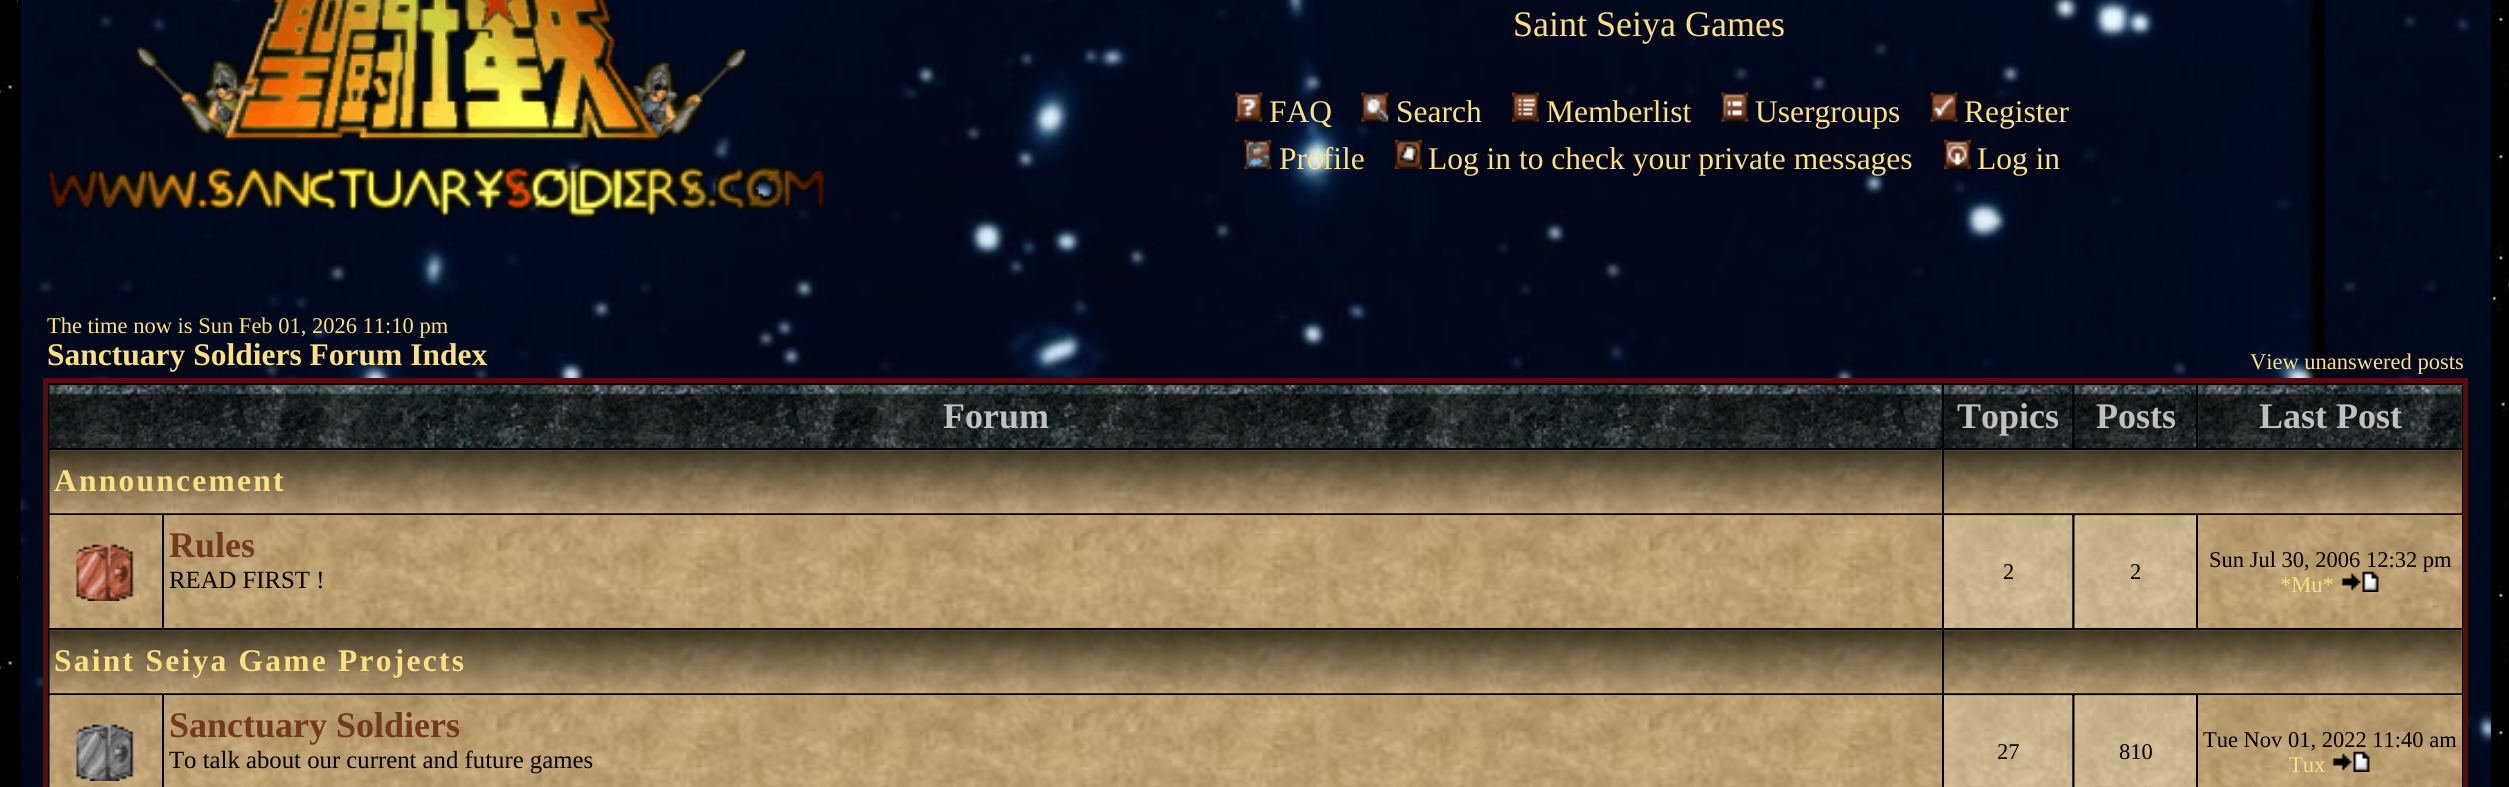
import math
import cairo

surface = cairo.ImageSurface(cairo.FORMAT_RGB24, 2509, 787)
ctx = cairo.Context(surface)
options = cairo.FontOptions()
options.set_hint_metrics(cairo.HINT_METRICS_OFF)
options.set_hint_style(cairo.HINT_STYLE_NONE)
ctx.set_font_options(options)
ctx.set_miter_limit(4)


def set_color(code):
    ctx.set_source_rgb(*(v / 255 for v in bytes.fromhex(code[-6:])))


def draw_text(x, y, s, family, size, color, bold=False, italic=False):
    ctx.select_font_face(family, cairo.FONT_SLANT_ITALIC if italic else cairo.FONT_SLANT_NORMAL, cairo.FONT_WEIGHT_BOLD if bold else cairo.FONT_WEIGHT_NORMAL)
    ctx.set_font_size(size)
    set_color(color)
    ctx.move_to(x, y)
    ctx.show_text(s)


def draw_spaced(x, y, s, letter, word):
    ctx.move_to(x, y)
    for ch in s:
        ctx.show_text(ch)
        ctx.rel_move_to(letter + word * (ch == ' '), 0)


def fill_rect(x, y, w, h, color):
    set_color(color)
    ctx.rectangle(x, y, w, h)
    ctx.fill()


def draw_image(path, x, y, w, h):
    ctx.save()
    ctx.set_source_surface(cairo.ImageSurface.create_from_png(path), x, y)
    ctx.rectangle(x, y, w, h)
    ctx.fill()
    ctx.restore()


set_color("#ffffff")
ctx.paint()
draw_image("assets/img1.png", 0, 0, 2509, 787)
draw_image("assets/img2.png", 20, 0, 2471, 787)
ctx.rectangle(19, -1, 2473, 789)
set_color("#000000")
ctx.stroke()
draw_image("assets/img3.png", 47, 0, 777, 219)
draw_text(1513, 36, "Saint Seiya Games", "Liberation Serif", 36, "#ffe081")
draw_image("assets/img4.png", 1235, 92, 28, 30)
draw_text(1269, 122, "FAQ", "Liberation Serif", 31.5, "#ffe081")
draw_image("assets/img5.png", 1361, 92, 28, 30)
draw_text(1396, 122, "Search", "Liberation Serif", 31.5, "#ffe081")
draw_image("assets/img6.png", 1512, 92, 27, 30)
draw_text(1546, 122, "Memberlist", "Liberation Serif", 31.5, "#ffe081")
draw_image("assets/img7.png", 1721, 92, 28, 30)
draw_text(1755, 122, "Usergroups", "Liberation Serif", 31.5, "#ffe081")
draw_image("assets/img8.png", 1930, 92, 28, 30)
draw_text(1964, 122, "Register", "Liberation Serif", 31.5, "#ffe081")
draw_image("assets/img9.png", 1244, 139, 28, 30)
draw_text(1279, 169, "Profile", "Liberation Serif", 31.5, "#ffe081")
draw_image("assets/img10.png", 1395, 139, 27, 30)
draw_text(1428, 169, "Log in to check your private messages", "Liberation Serif", 31.5, "#ffe081")
draw_image("assets/img11.png", 1944, 139, 27, 30)
draw_text(1977, 169, "Log in", "Liberation Serif", 31.5, "#ffe081")
draw_text(47, 333, "The time now is Sun Feb 01, 2026 11:10 pm", "Liberation Serif", 22.5, "#ffe081")
draw_text(47, 365, "Sanctuary Soldiers Forum Index", "Liberation Serif", 31.5, "#ffe081", bold=True)
draw_text(2250, 369, "View unanswered posts", "Liberation Serif", 22.5, "#ffe081")
set_color("#000000")
ctx.rectangle(45.5, 380.5, 2420, 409)
ctx.fill_preserve()
set_color("#5b0b0b")
ctx.set_line_width(5)
ctx.stroke()
draw_image("assets/img12.png", 49, 385, 1893, 63)
draw_text(943, 428, "Forum", "Liberation Serif", 36, "#c0c0c0", bold=True)
draw_image("assets/img13.png", 1944, 385, 129, 63)
draw_text(1957, 428, "Topics", "Liberation Serif", 36, "#c0c0c0", bold=True)
draw_image("assets/img14.png", 2074, 385, 122, 63)
draw_text(2096, 428, "Posts", "Liberation Serif", 36, "#c0c0c0", bold=True)
fill_rect(2198, 385, 264, 63, "#424242")
draw_image("assets/img15.png", 2198, 385, 264, 63)
draw_text(2259, 428, "Last Post", "Liberation Serif", 36, "#c0c0c0", bold=True)
fill_rect(50, 450, 1892, 63, "#9e8052")
draw_image("assets/img16.png", 49, 450, 1893, 64)
ctx.set_font_size(31.5)
set_color("#ffe081")
draw_spaced(54, 491, "Announcement", 2.25, 0)
fill_rect(1944, 450, 518, 63, "#9e8052")
draw_image("assets/img17.png", 1944, 450, 518, 64)
fill_rect(50, 515, 112, 1, "#ba9f70")
draw_image("assets/img18.png", 49, 515, 113, 113)
draw_image("assets/img19.png", 76, 544, 58, 57)
fill_rect(164, 515, 1778, 113, "#ba9f70")
draw_image("assets/img20.png", 164, 515, 1778, 113)
draw_text(169, 557, "Rules", "Liberation Serif", 36, "#733a1a", bold=True)
draw_text(169, 588, "READ FIRST !", "Liberation Serif", 24.75, "#000000")
fill_rect(1944, 515, 128, 1, "#ab8c5b")
draw_image("assets/img21.png", 1944, 515, 129, 113)
draw_text(2003, 579, "2", "Liberation Serif", 22.5, "#000000")
fill_rect(2075, 515, 121, 1, "#ab8c5b")
draw_image("assets/img22.png", 2074, 515, 122, 113)
draw_text(2130, 579, "2", "Liberation Serif", 22.5, "#000000")
fill_rect(2198, 515, 264, 113, "#ba9f70")
draw_image("assets/img23.png", 2198, 515, 264, 113)
draw_text(2209, 567, "Sun Jul 30, 2006 12:32 pm", "Liberation Serif", 22.5, "#000000")
draw_text(2280, 592, "*Mu*", "Liberation Serif", 22.5, "#ffe081")
draw_image("assets/img24.png", 2341, 571, 38, 21)
fill_rect(50, 630, 1892, 63, "#9e8052")
draw_image("assets/img25.png", 49, 630, 1893, 64)
ctx.select_font_face("Liberation Serif", cairo.FONT_SLANT_NORMAL, cairo.FONT_WEIGHT_BOLD)
ctx.set_font_size(31.5)
set_color("#ffe081")
draw_spaced(54, 671, "Saint Seiya Game Projects", 2.25, 0)
fill_rect(1944, 630, 518, 63, "#9e8052")
draw_image("assets/img26.png", 1944, 630, 518, 64)
fill_rect(50, 695, 112, 1, "#ba9f70")
draw_image("assets/img27.png", 49, 695, 113, 92)
draw_image("assets/img28.png", 76, 724, 58, 57)
fill_rect(164, 695, 1778, 92, "#ba9f70")
draw_image("assets/img29.png", 164, 695, 1778, 92)
draw_text(169, 737, "Sanctuary Soldiers", "Liberation Serif", 36, "#733a1a", bold=True)
draw_text(169, 768, "To talk about our current and future games", "Liberation Serif", 24.75, "#000000")
fill_rect(1944, 695, 128, 1, "#ab8c5b")
draw_image("assets/img30.png", 1944, 695, 129, 92)
draw_text(1997, 759, "27", "Liberation Serif", 22.5, "#000000")
fill_rect(2075, 695, 121, 1, "#ab8c5b")
draw_image("assets/img31.png", 2074, 695, 122, 92)
draw_text(2119, 759, "810", "Liberation Serif", 22.5, "#000000")
fill_rect(2198, 695, 264, 92, "#ba9f70")
draw_image("assets/img32.png", 2198, 695, 264, 92)
draw_text(2203, 747, "Tue Nov 01, 2022 11:40 am", "Liberation Serif", 22.5, "#000000")
draw_text(2289, 772, "Tux", "Liberation Serif", 22.5, "#ffe081")
draw_image("assets/img33.png", 2332, 751, 38, 21)
surface.write_to_png("output.png")
